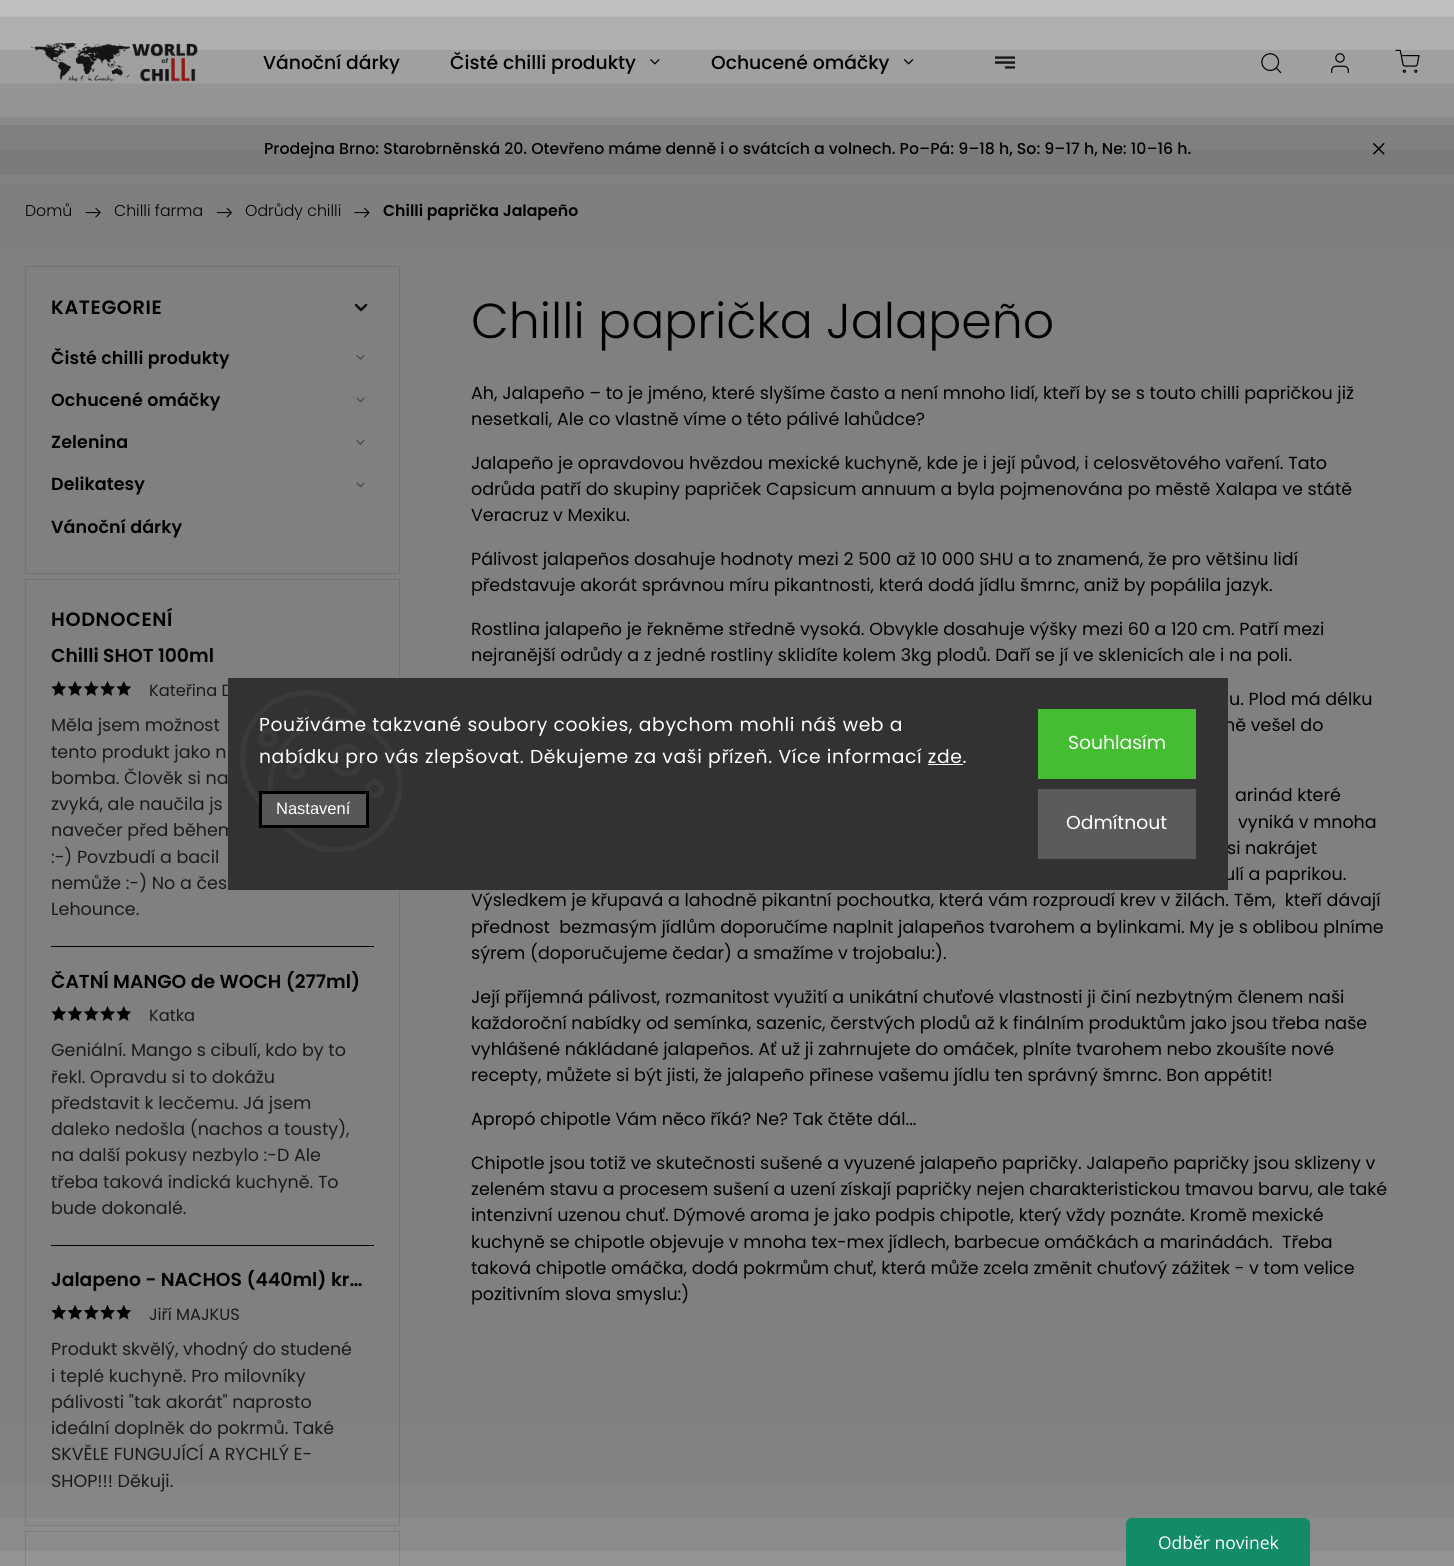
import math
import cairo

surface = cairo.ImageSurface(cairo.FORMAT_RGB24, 1454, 1566)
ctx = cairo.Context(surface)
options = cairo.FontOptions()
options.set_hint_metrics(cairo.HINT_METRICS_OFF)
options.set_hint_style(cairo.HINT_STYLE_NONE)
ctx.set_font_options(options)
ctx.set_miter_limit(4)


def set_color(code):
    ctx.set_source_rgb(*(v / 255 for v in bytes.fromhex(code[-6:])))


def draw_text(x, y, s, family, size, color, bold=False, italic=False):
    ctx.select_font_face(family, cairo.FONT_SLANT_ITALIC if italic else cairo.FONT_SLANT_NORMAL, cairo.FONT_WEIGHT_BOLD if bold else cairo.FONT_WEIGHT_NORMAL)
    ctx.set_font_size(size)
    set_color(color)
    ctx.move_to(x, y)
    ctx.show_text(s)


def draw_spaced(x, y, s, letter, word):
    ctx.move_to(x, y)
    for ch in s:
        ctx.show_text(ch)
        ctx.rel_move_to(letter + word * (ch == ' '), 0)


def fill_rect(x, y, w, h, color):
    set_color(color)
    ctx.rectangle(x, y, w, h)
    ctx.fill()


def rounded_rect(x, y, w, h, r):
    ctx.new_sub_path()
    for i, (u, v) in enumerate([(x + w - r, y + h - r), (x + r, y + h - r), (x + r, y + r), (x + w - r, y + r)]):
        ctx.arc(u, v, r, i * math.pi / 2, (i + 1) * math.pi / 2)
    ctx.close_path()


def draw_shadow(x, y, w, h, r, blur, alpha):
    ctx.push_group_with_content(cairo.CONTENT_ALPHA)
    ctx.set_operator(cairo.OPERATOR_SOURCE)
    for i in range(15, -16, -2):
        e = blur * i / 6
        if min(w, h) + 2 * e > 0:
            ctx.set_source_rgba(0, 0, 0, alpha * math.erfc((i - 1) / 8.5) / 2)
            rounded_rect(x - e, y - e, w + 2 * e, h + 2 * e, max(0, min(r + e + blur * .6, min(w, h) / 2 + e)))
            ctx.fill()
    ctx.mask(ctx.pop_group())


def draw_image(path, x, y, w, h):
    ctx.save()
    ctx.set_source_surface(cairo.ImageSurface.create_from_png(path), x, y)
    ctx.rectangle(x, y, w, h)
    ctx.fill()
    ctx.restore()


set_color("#ffffff")
ctx.paint()
draw_image("assets/img1.png", 30, 42, 168, 40)
draw_image("assets/img2.png", 1261, 53, 21, 21)
draw_image("assets/img3.png", 1331, 53, 18, 21)
draw_image("assets/img4.png", 1395, 49, 25, 24)
draw_text(263, 69, "Vánoční dárky", "Poppins Medium", 18.75, "#000000")
draw_text(450, 69, "Čisté chilli produkty", "Poppins Medium", 18.75, "#000000")
draw_image("assets/img5.png", 650, 59, 10, 6)
draw_text(711, 69, "Ochucené omáčky", "Poppins Medium", 18.75, "#000000")
draw_image("assets/img6.png", 903, 59, 11, 6)
draw_image("assets/img7.png", 995, 56, 20, 13)
fill_rect(0, 125, 1454, 50, "#ebebeb")
draw_text(264, 154, "Prodejna Brno: Starobrněnská 20. Otevřeno máme denně i o svátcích a volnech. Po–Pá: 9–18 h, So: 9–17 h, Ne: 10–16 h.", "Poppins Medium", 15.75, "#000000")
draw_image("assets/img8.png", 1373, 143, 12, 12)
fill_rect(0, 175, 1454, 73, "#fafafa")
draw_text(25, 216, "Domů", "Poppins Light", 15.75, "#000000")
draw_image("assets/img9.png", 85, 208, 16, 10)
draw_text(114, 216, "Chilli farma", "Poppins Light", 15.75, "#000000")
draw_image("assets/img10.png", 216, 208, 16, 10)
draw_text(245, 216, "Odrůdy chilli", "Poppins Light", 15.75, "#000000")
draw_image("assets/img11.png", 354, 208, 16, 10)
draw_text(383, 216, "Chilli paprička Jalapeño", "Poppins SemiBold", 15.75, "#000000")
ctx.rectangle(25.5, 266.5, 374, 307)
set_color("#e4e4e4")
ctx.set_line_width(1)
ctx.stroke()
ctx.set_font_size(19.25)
set_color("#000000")
draw_spaced(51, 314, "KATEGORIE", 0.62, 0)
ctx.new_path()
ctx.move_to(356, 305)
ctx.line_to(361, 310)
ctx.line_to(366, 305)
set_color("#1e1e1c")
ctx.set_line_width(2.5)
ctx.set_line_cap(cairo.LINE_CAP_ROUND)
ctx.set_line_join(cairo.LINE_JOIN_ROUND)
ctx.stroke()
ctx.set_font_size(17.5)
set_color("#000000")
draw_spaced(51, 364, "Čisté chilli produkty", 0.1, 0)
draw_image("assets/img12.png", 356, 355, 9, 5)
draw_spaced(51, 406, "Ochucené omáčky", 0.1, 0)
draw_image("assets/img13.png", 356, 397, 9, 6)
draw_spaced(51, 448, "Zelenina", 0.1, 0)
draw_image("assets/img12.png", 356, 440, 9, 5)
draw_spaced(51, 490, "Delikatesy", 0.1, 0)
draw_image("assets/img13.png", 356, 482, 9, 6)
draw_spaced(51, 533, "Vánoční dárky", 0.1, 0)
ctx.rectangle(25.5, 579.5, 374, 946)
set_color("#e4e4e4")
ctx.set_line_width(1)
ctx.set_line_cap(cairo.LINE_CAP_BUTT)
ctx.set_line_join(cairo.LINE_JOIN_MITER)
ctx.stroke()
ctx.set_font_size(19.25)
set_color("#000000")
draw_spaced(51, 626, "HODNOCENÍ", 0.62, 0)
draw_text(51, 662, "Chilli SHOT 100ml", "Poppins SemiBold", 18.75, "#000000")
draw_image("assets/img14.png", 51, 681, 16, 15)
draw_image("assets/img15.png", 67, 681, 16, 15)
draw_image("assets/img16.png", 83, 681, 16, 15)
draw_image("assets/img17.png", 100, 681, 15, 15)
draw_image("assets/img14.png", 116, 681, 16, 15)
draw_text(149, 696, "Kateřina D", "Poppins", 16.25, "#333333")
draw_text(51, 731, "Měla jsem možnost", "Poppins", 17.5, "#333333")
draw_text(51, 758, "tento produkt jako n", "Poppins", 17.5, "#333333")
draw_text(51, 784, "bomba. Člověk si na", "Poppins", 17.5, "#333333")
draw_text(51, 810, "zvyká, ale naučila js", "Poppins", 17.5, "#333333")
draw_text(51, 836, "navečer před během", "Poppins", 17.5, "#333333")
draw_text(51, 863, ":-) Povzbudí a bacil", "Poppins", 17.5, "#333333")
draw_text(51, 889, "nemůže :-) No a čes", "Poppins", 17.5, "#333333")
draw_text(51, 915, "Lehounce.", "Poppins", 17.5, "#333333")
fill_rect(51, 946, 323, 1, "#000000")
ctx.save()
ctx.rectangle(51, 971, 323, 22)
ctx.clip()
draw_text(51, 988, "ČATNÍ MANGO de WOCH (277ml)", "Poppins SemiBold", 18.75, "#000000")
ctx.restore()
draw_image("assets/img14.png", 51, 1006, 16, 15)
draw_image("assets/img15.png", 67, 1006, 16, 15)
draw_image("assets/img16.png", 83, 1006, 16, 15)
draw_image("assets/img17.png", 100, 1006, 15, 15)
draw_image("assets/img14.png", 116, 1006, 16, 15)
draw_text(149, 1021, "Katka", "Poppins", 16.25, "#333333")
draw_text(51, 1056, "Geniální. Mango s cibulí, kdo by to", "Poppins", 17.5, "#333333")
draw_text(51, 1083, "řekl. Opravdu si to dokážu", "Poppins", 17.5, "#333333")
draw_text(51, 1109, "představit k lecčemu. Já jsem", "Poppins", 17.5, "#333333")
draw_text(51, 1135, "daleko nedošla (nachos a tousty),", "Poppins", 17.5, "#333333")
draw_text(51, 1161, "na další pokusy nezbylo :-D Ale", "Poppins", 17.5, "#333333")
draw_text(51, 1188, "třeba taková indická kuchyně. To", "Poppins", 17.5, "#333333")
draw_text(51, 1214, "bude dokonalé.", "Poppins", 17.5, "#333333")
fill_rect(51, 1245, 323, 1, "#000000")
ctx.save()
ctx.rectangle(51, 1270, 323, 21)
ctx.clip()
draw_text(51, 1286, "Jalapeno - NACHOS (440ml) kr…", "Poppins SemiBold", 18.75, "#000000")
ctx.restore()
draw_image("assets/img18.png", 51, 1304, 16, 16)
draw_image("assets/img19.png", 67, 1304, 16, 16)
draw_image("assets/img20.png", 83, 1304, 16, 16)
draw_image("assets/img21.png", 100, 1304, 15, 16)
draw_image("assets/img18.png", 116, 1304, 16, 16)
draw_text(149, 1320, "Jiří MAJKUS", "Poppins", 16.25, "#333333")
draw_text(51, 1355, "Produkt skvělý, vhodný do studené", "Poppins", 17.5, "#333333")
draw_text(51, 1382, "i teplé kuchyně. Pro milovníky", "Poppins", 17.5, "#333333")
draw_text(51, 1408, "pálivosti \"tak akorát\" naprosto", "Poppins", 17.5, "#333333")
draw_text(51, 1434, "ideální doplněk do pokrmů. Také", "Poppins", 17.5, "#333333")
draw_text(51, 1460, "SKVĚLE FUNGUJÍCÍ A RYCHLÝ E-", "Poppins", 17.5, "#333333")
draw_text(51, 1487, "SHOP!!! Děkuji.", "Poppins", 17.5, "#333333")
ctx.rectangle(25.5, 1531.5, 374, 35)
set_color("#e4e4e4")
ctx.stroke()
draw_text(471, 338, "Chilli paprička Jalapeño", "Poppins Light", 49, "#000000")
draw_text(471, 399, "Ah, Jalapeño – to je jméno, které slyšíme často a není mnoho lidí, kteří by se s touto chilli papričkou již", "Poppins", 17.5, "#000000")
draw_text(471, 425, "nesetkali, Ale co vlastně víme o této pálivé lahůdce?", "Poppins", 17.5, "#000000")
draw_text(471, 469, "Jalapeño je opravdovou hvězdou mexické kuchyně, kde je i její původ, i celosvětového vaření. Tato", "Poppins", 17.5, "#000000")
draw_text(471, 495, "odrůda patří do skupiny papriček Capsicum annuum a byla pojmenována po městě Xalapa ve státě", "Poppins", 17.5, "#000000")
draw_text(471, 521, "Veracruz v Mexiku.", "Poppins", 17.5, "#000000")
draw_text(471, 565, "Pálivost jalapeños dosahuje hodnoty mezi 2 500 až 10 000 SHU a to znamená, že pro většinu lidí", "Poppins", 17.5, "#000000")
draw_text(471, 591, "představuje akorát správnou míru pikantnosti, která dodá jídlu šmrnc, aniž by popálila jazyk.", "Poppins", 17.5, "#000000")
draw_text(471, 635, "Rostlina jalapeño je řekněme středně vysoká. Obvykle dosahuje výšky mezi 60 a 120 cm. Patří mezi", "Poppins", 17.5, "#000000")
draw_text(471, 661, "nejranější odrůdy a z jedné rostliny sklidíte kolem 3kg plodů. Daří se jí ve sklenicích ale i na poli.", "Poppins", 17.5, "#000000")
draw_text(1229, 705, "u. Plod má délku", "Poppins", 17.5, "#000000")
draw_text(1224, 731, "ně vešel do", "Poppins", 17.5, "#000000")
draw_text(1235, 801, "arinád které", "Poppins", 17.5, "#000000")
draw_text(1238, 828, "vyniká v mnoha", "Poppins", 17.5, "#000000")
draw_text(1227, 854, "si nakrájet", "Poppins", 17.5, "#000000")
draw_text(1224, 880, "ulí a paprikou.", "Poppins", 17.5, "#000000")
draw_text(471, 906, "Výsledkem je křupavá a lahodně pikantní pochoutka, která vám rozproudí krev v žilách. Těm,  kteří dávají", "Poppins", 17.5, "#000000")
draw_text(471, 933, "přednost  bezmasým jídlům doporučíme naplnit jalapeños tvarohem a bylinkami. My je s oblibou plníme", "Poppins", 17.5, "#000000")
draw_text(471, 959, "sýrem (doporučujeme čedar) a smažíme v trojobalu:).", "Poppins", 17.5, "#000000")
draw_text(471, 1003, "Její příjemná pálivost, rozmanitost využití a unikátní chuťové vlastnosti ji činí nezbytným členem naši", "Poppins", 17.5, "#000000")
draw_text(471, 1029, "každoroční nabídky od semínka, sazenic, čerstvých plodů až k finálním produktům jako jsou třeba naše", "Poppins", 17.5, "#000000")
draw_text(471, 1055, "vyhlášené nákládané jalapeños. Ať už ji zahrnujete do omáček, plníte tvarohem nebo zkoušíte nové", "Poppins", 17.5, "#000000")
draw_text(471, 1081, "recepty, můžete si být jisti, že jalapeño přinese vašemu jídlu ten správný šmrnc. Bon appétit!", "Poppins", 17.5, "#000000")
draw_text(471, 1125, "Apropó chipotle Vám něco říká? Ne? Tak čtěte dál...", "Poppins", 17.5, "#000000")
draw_text(471, 1169, "Chipotle jsou totiž ve skutečnosti sušené a vyuzené jalapeño papričky. Jalapeño papričky jsou sklizeny v", "Poppins", 17.5, "#000000")
draw_text(471, 1195, "zeleném stavu a procesem sušení a uzení získají papričky nejen charakteristickou tmavou barvu, ale také", "Poppins", 17.5, "#000000")
draw_text(471, 1221, "intenzivní uzenou chuť. Dýmové aroma je jako podpis chipotle, který vždy poznáte. Kromě mexické", "Poppins", 17.5, "#000000")
draw_text(471, 1248, "kuchyně se chipotle objevuje v mnoha tex-mex jídlech, barbecue omáčkách a marinádách.  Třeba", "Poppins", 17.5, "#000000")
draw_text(471, 1274, "taková chipotle omáčka, dodá pokrmům chuť, která může zcela změnit chuťový zážitek - v tom velice", "Poppins", 17.5, "#000000")
draw_text(471, 1300, "pozitivním slova smyslu:)", "Poppins", 17.5, "#000000")
set_color("#000000")
draw_shadow(-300, 0, 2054, 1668, 0, 100, 0.5)
fill_rect(228, 678, 1000, 212, "#323232")
draw_image("assets/img22.png", 240, 690, 162, 162)
ctx.set_font_size(18.75)
set_color("#ffffff")
draw_spaced(259, 731, "Používáme takzvané soubory cookies, abychom mohli náš web a", 0.62, 0)
draw_spaced(259, 763, "nabídku pro vás zlepšovat. Děkujeme za vaši přízeň. Více informací zde.", 0.62, 0)
fill_rect(928, 764, 35, 1, "#ffffff")
set_color("#585757")
ctx.rectangle(260.5, 792.5, 107, 34)
ctx.fill_preserve()
set_color("#000000")
ctx.set_line_width(3)
ctx.stroke()
draw_text(276, 814, "Nastavení", "Liberation Sans", 16.5, "#ffffff")
fill_rect(1038, 709, 158, 70, "#44bd32")
draw_text(1068, 749, "Souhlasím", "Poppins", 18.75, "#ffffff")
fill_rect(1038, 789, 158, 70, "#5b5b5b")
draw_text(1066, 829, "Odmítnout", "Poppins", 18.75, "#ffffff")
set_color("#128b66")
ctx.new_path()
ctx.move_to(1132, 1518)
ctx.line_to(1304, 1518)
ctx.curve_to(1307.5, 1518, 1310, 1520.5, 1310, 1524)
ctx.line_to(1310, 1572)
ctx.line_to(1126, 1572)
ctx.line_to(1126, 1524)
ctx.curve_to(1126, 1520.5, 1128.5, 1518, 1132, 1518)
ctx.close_path()
ctx.fill()
draw_text(1158, 1549, "Odběr novinek", "Open Sans", 17.5, "#ffffff")
surface.write_to_png("output.png")
